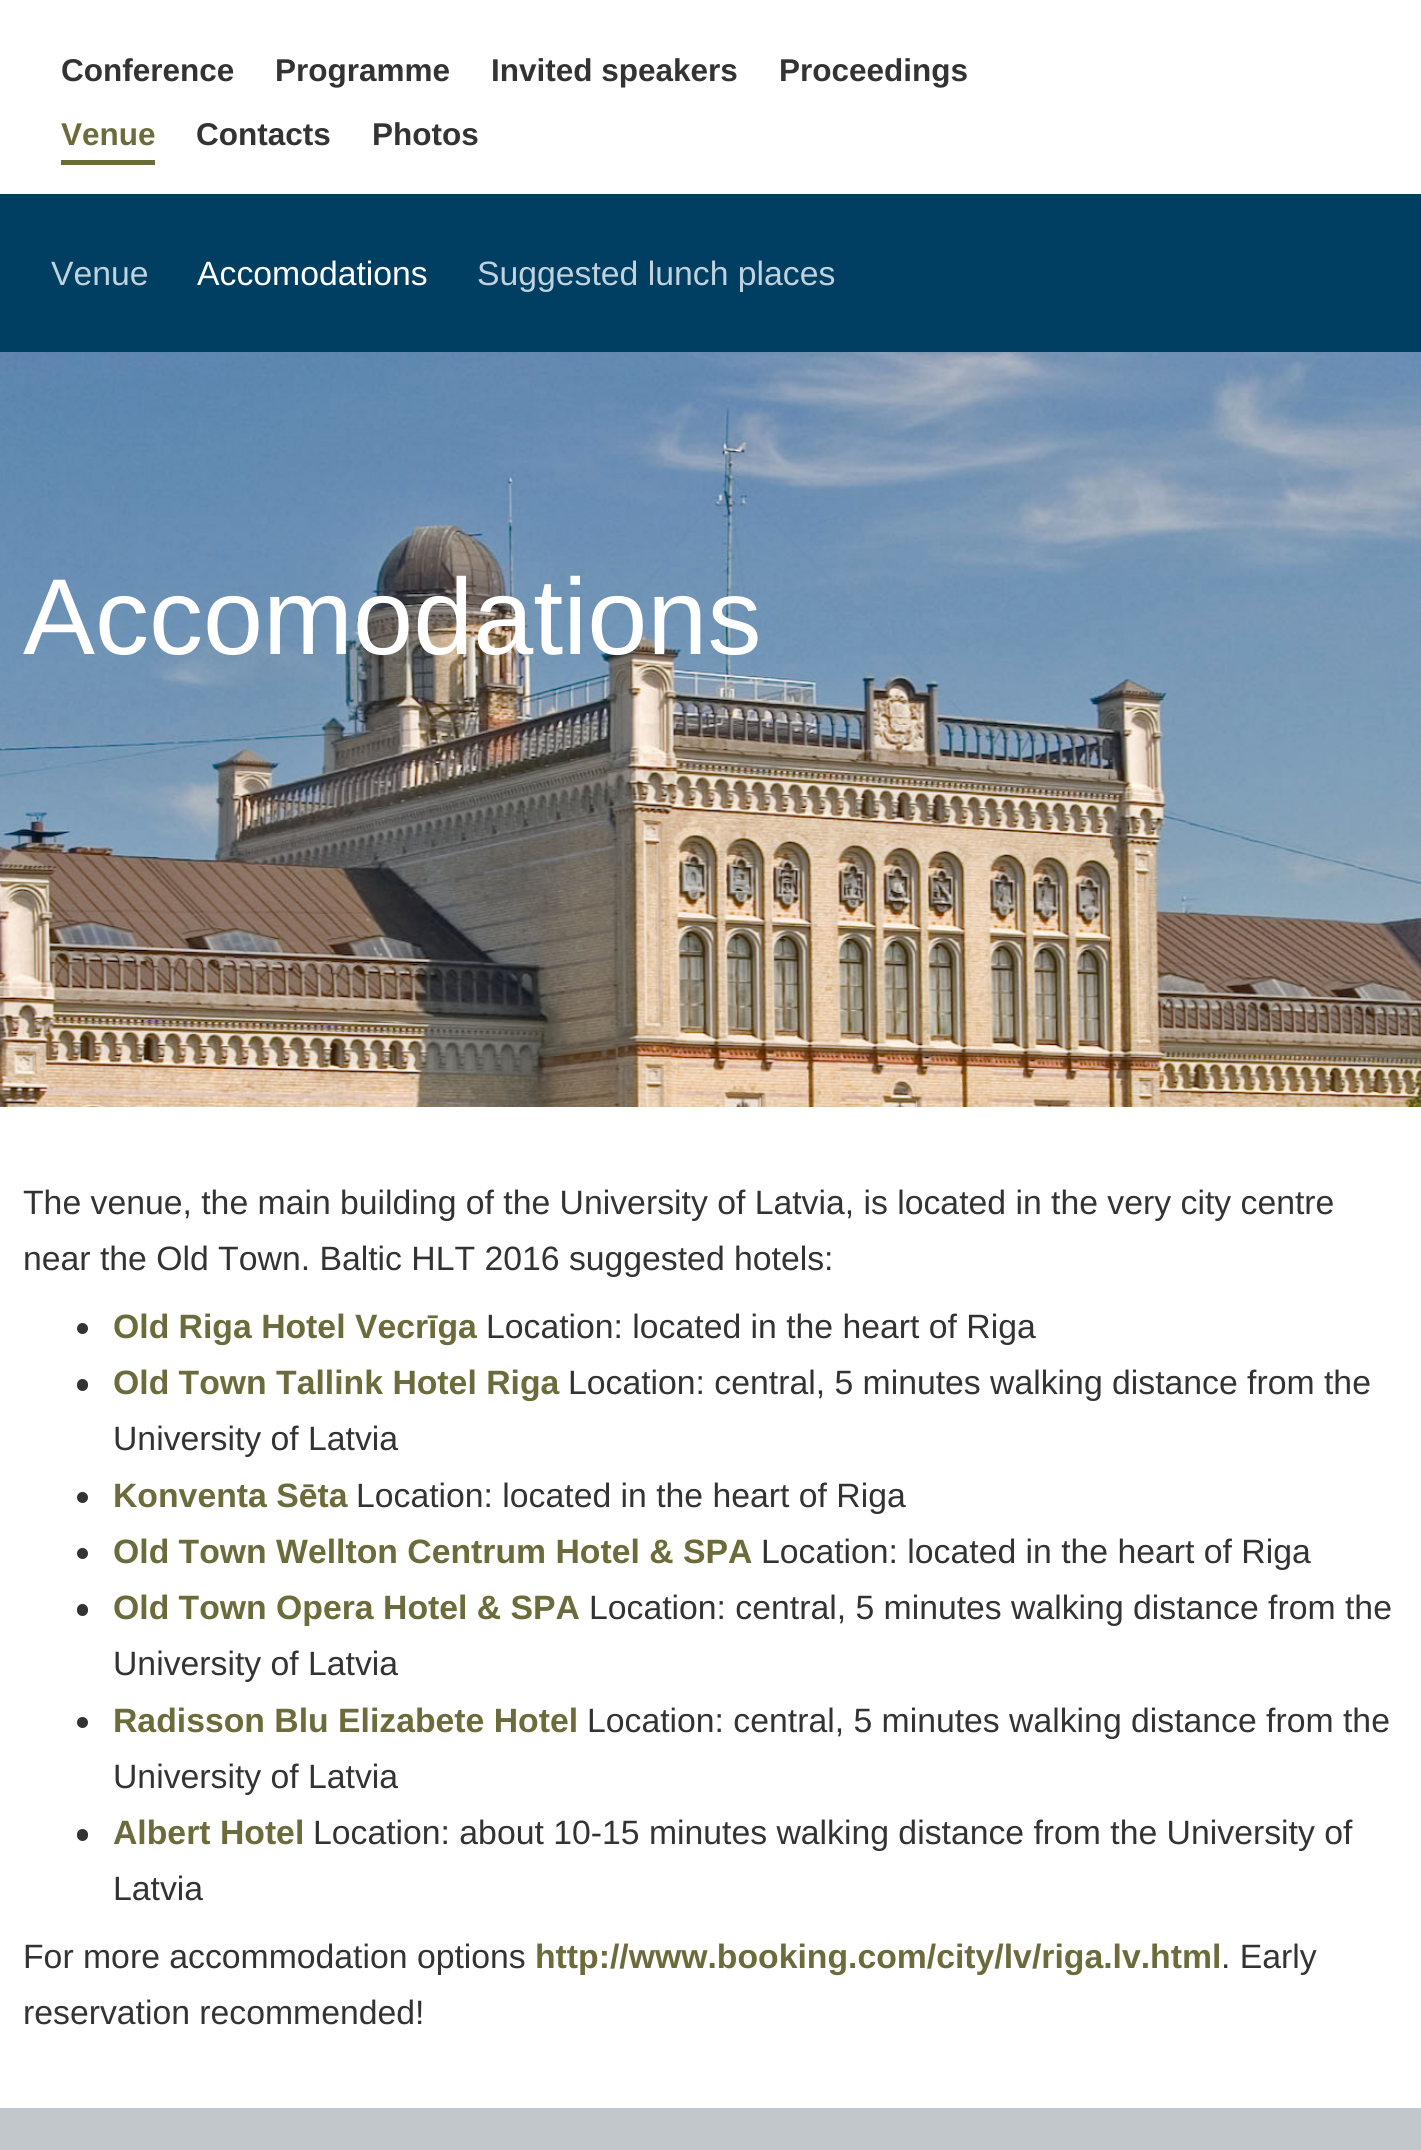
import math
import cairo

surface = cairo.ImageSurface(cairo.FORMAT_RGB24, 1421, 2150)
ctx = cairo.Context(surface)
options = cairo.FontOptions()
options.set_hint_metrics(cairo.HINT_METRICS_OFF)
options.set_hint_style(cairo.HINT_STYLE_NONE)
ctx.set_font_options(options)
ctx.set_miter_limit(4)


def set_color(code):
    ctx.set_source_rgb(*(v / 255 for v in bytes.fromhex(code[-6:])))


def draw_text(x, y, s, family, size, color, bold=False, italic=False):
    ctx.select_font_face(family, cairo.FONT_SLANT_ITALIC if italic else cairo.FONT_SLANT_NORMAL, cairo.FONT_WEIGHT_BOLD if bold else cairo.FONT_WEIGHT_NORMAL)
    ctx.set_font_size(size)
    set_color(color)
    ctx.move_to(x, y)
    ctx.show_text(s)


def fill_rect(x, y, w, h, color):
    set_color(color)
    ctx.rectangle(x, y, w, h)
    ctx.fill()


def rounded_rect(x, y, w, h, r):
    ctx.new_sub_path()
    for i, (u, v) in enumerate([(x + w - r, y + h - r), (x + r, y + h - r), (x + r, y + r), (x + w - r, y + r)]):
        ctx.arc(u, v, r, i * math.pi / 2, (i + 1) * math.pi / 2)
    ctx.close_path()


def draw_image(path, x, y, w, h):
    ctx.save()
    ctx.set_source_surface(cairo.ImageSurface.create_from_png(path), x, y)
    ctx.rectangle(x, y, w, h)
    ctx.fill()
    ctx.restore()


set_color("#ffffff")
ctx.paint()
draw_text(61, 81, "Conference", "Liberation Sans", 31.5, "#333333", bold=True)
draw_text(275, 81, "Programme", "Liberation Sans", 31.5, "#333333", bold=True)
draw_text(491, 81, "Invited speakers", "Liberation Sans", 31.5, "#333333", bold=True)
draw_text(779, 81, "Proceedings", "Liberation Sans", 31.5, "#333333", bold=True)
draw_text(61, 145, "Venue", "Liberation Sans", 31.5, "#6c6b3b", bold=True)
fill_rect(61, 160, 94, 5, "#6c6b3b")
draw_text(196, 145, "Contacts", "Liberation Sans", 31.5, "#333333", bold=True)
draw_text(372, 145, "Photos", "Liberation Sans", 31.5, "#333333", bold=True)
fill_rect(0, 194, 1421, 158, "#003e62")
draw_text(51, 285, "Venue", "Liberation Sans", 33.75, "#bfd2de")
draw_text(197, 285, "Accomodations", "Liberation Sans", 33.75, "#ffffff")
draw_text(477, 285, "Suggested lunch places", "Liberation Sans", 33.75, "#bfd2de")
draw_image("assets/img1.png", 0, 352, 1421, 755)
draw_text(23, 654, "Accomodations", "Liberation Sans", 108, "#ffffff")
draw_text(23, 1214, "The venue, the main building of the University of Latvia, is located in the very city centre", "Liberation Sans", 33.75, "#333333")
draw_text(23, 1270, "near the Old Town. Baltic HLT 2016 suggested hotels:", "Liberation Sans", 33.75, "#333333")
ctx.new_path()
ctx.arc(82.5, 1328.5, 5.5, 0, 2 * math.pi)
ctx.fill()
draw_text(113, 1338, "Old Riga Hotel Vecrīga", "Liberation Sans", 33.75, "#6c6b3b", bold=True)
draw_text(486, 1338, "Location: located in the heart of Riga", "Liberation Sans", 33.75, "#333333")
rounded_rect(77, 1379, 11, 12, 5.5)
ctx.fill()
draw_text(113, 1394, "Old Town Tallink Hotel Riga", "Liberation Sans", 33.75, "#6c6b3b", bold=True)
draw_text(568, 1394, "Location: central, 5 minutes walking distance from the", "Liberation Sans", 33.75, "#333333")
draw_text(113, 1450, "University of Latvia", "Liberation Sans", 33.75, "#333333")
ctx.new_path()
ctx.arc(82.5, 1497.5, 5.5, 0, 2 * math.pi)
ctx.fill()
draw_text(113, 1507, "Konventa Sēta", "Liberation Sans", 33.75, "#6c6b3b", bold=True)
draw_text(356, 1507, "Location: located in the heart of Riga", "Liberation Sans", 33.75, "#333333")
ctx.new_path()
ctx.arc(82.5, 1553.5, 5.5, 0, 2 * math.pi)
ctx.fill()
draw_text(113, 1563, "Old Town Wellton Centrum Hotel & SPA", "Liberation Sans", 33.75, "#6c6b3b", bold=True)
draw_text(761, 1563, "Location: located in the heart of Riga", "Liberation Sans", 33.75, "#333333")
rounded_rect(77, 1604, 11, 12, 5.5)
ctx.fill()
draw_text(113, 1619, "Old Town Opera Hotel & SPA", "Liberation Sans", 33.75, "#6c6b3b", bold=True)
draw_text(589, 1619, "Location: central, 5 minutes walking distance from the", "Liberation Sans", 33.75, "#333333")
draw_text(113, 1675, "University of Latvia", "Liberation Sans", 33.75, "#333333")
ctx.new_path()
ctx.arc(82.5, 1722.5, 5.5, 0, 2 * math.pi)
ctx.fill()
draw_text(113, 1732, "Radisson Blu Elizabete Hotel", "Liberation Sans", 33.75, "#6c6b3b", bold=True)
draw_text(587, 1732, "Location: central, 5 minutes walking distance from the", "Liberation Sans", 33.75, "#333333")
draw_text(113, 1788, "University of Latvia", "Liberation Sans", 33.75, "#333333")
rounded_rect(77, 1829, 11, 12, 5.5)
ctx.fill()
draw_text(113, 1844, "Albert Hotel", "Liberation Sans", 33.75, "#6c6b3b", bold=True)
draw_text(313, 1844, "Location: about 10-15 minutes walking distance from the University of", "Liberation Sans", 33.75, "#333333")
draw_text(113, 1900, "Latvia", "Liberation Sans", 33.75, "#333333")
draw_text(23, 1968, "For more accommodation options", "Liberation Sans", 33.75, "#333333")
draw_text(535, 1968, "http://www.booking.com/city/lv/riga.lv.html", "Liberation Sans", 33.75, "#6c6b3b", bold=True)
draw_text(1221, 1968, ". Early", "Liberation Sans", 33.75, "#333333")
draw_text(23, 2024, "reservation recommended!", "Liberation Sans", 33.75, "#333333")
fill_rect(0, 2108, 1421, 42, "#c1c7cb")
surface.write_to_png("output.png")
